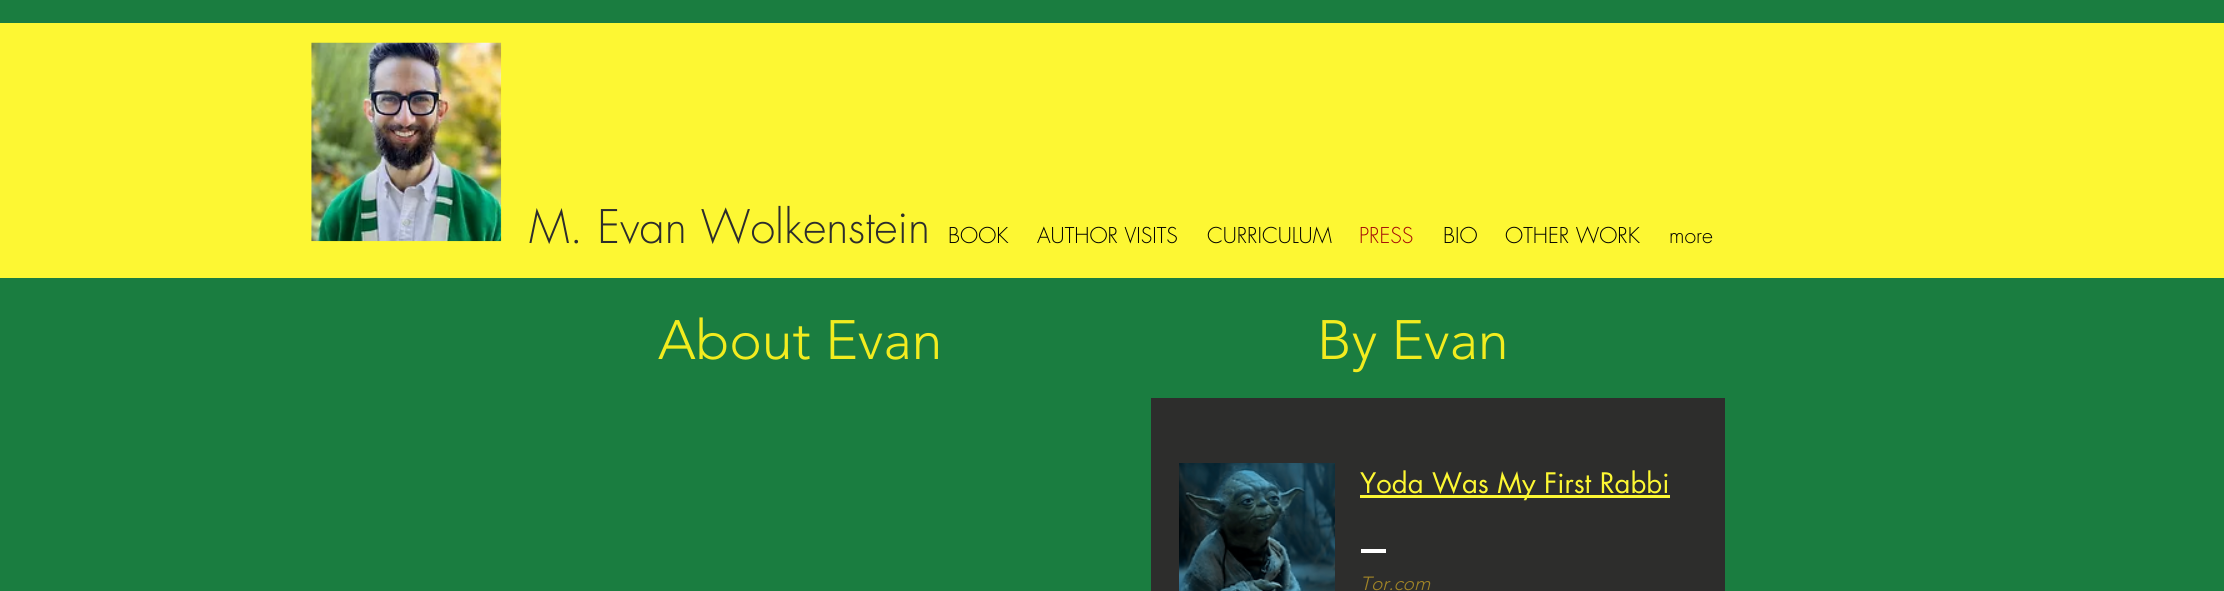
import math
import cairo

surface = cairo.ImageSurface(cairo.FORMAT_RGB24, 2224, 591)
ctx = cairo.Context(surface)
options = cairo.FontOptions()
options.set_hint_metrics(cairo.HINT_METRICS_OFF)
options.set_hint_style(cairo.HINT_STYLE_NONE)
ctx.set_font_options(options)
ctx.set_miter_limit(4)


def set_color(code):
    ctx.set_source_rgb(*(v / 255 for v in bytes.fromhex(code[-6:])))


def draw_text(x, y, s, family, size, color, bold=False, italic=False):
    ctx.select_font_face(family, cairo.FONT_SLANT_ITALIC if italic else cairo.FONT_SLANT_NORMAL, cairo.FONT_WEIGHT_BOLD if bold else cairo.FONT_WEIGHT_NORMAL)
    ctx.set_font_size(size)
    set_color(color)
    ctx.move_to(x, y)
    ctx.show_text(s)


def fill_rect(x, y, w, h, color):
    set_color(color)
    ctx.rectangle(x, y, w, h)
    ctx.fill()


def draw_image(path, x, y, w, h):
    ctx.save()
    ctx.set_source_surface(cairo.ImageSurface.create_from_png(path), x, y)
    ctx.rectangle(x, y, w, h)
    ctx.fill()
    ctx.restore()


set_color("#1a7d40")
ctx.paint()
fill_rect(0, 23, 2224, 255, "#fdf733")
draw_image("assets/img1.png", 311, 42, 191, 200)
draw_text(529, 243, "M. Evan Wolkenstein", "futura Light", 45, "#2d2d2c")
draw_text(948, 243, "BOOK", "futura Light", 21.25, "#000000")
draw_text(1037, 243, "AUTHOR VISITS", "futura Light", 21.25, "#000000")
draw_text(1207, 243, "CURRICULUM", "futura Light", 21.25, "#000000")
draw_text(1359, 243, "PRESS", "futura Light", 21.25, "#a40606")
draw_text(1443, 243, "BIO", "futura Light", 21.25, "#000000")
draw_text(1505, 243, "OTHER WORK", "futura Light", 21.25, "#000000")
draw_text(1669, 243, "more", "futura Light", 21.25, "#000000")
draw_text(658, 359, "About Evan", "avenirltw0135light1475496 Light", 55, "#f2ec1f")
draw_text(1317, 359, "By Evan", "avenirltw0135light1475496 Light", 55, "#f2ec1f")
fill_rect(1151, 398, 574, 193, "#2d2d2c")
draw_image("assets/img2.png", 1179, 463, 156, 128)
fill_rect(1360, 495, 310, 3, "#fdf733")
draw_text(1360, 493, "Yoda Was My First Rabbi", "futura", 27.5, "#fdf733")
fill_rect(1361, 549, 25, 4, "#ffffff")
draw_text(1360, 590, "Tor.com", "avenirltw0135light1475496 Light", 19, "#a18426", italic=True)
surface.write_to_png("output.png")
